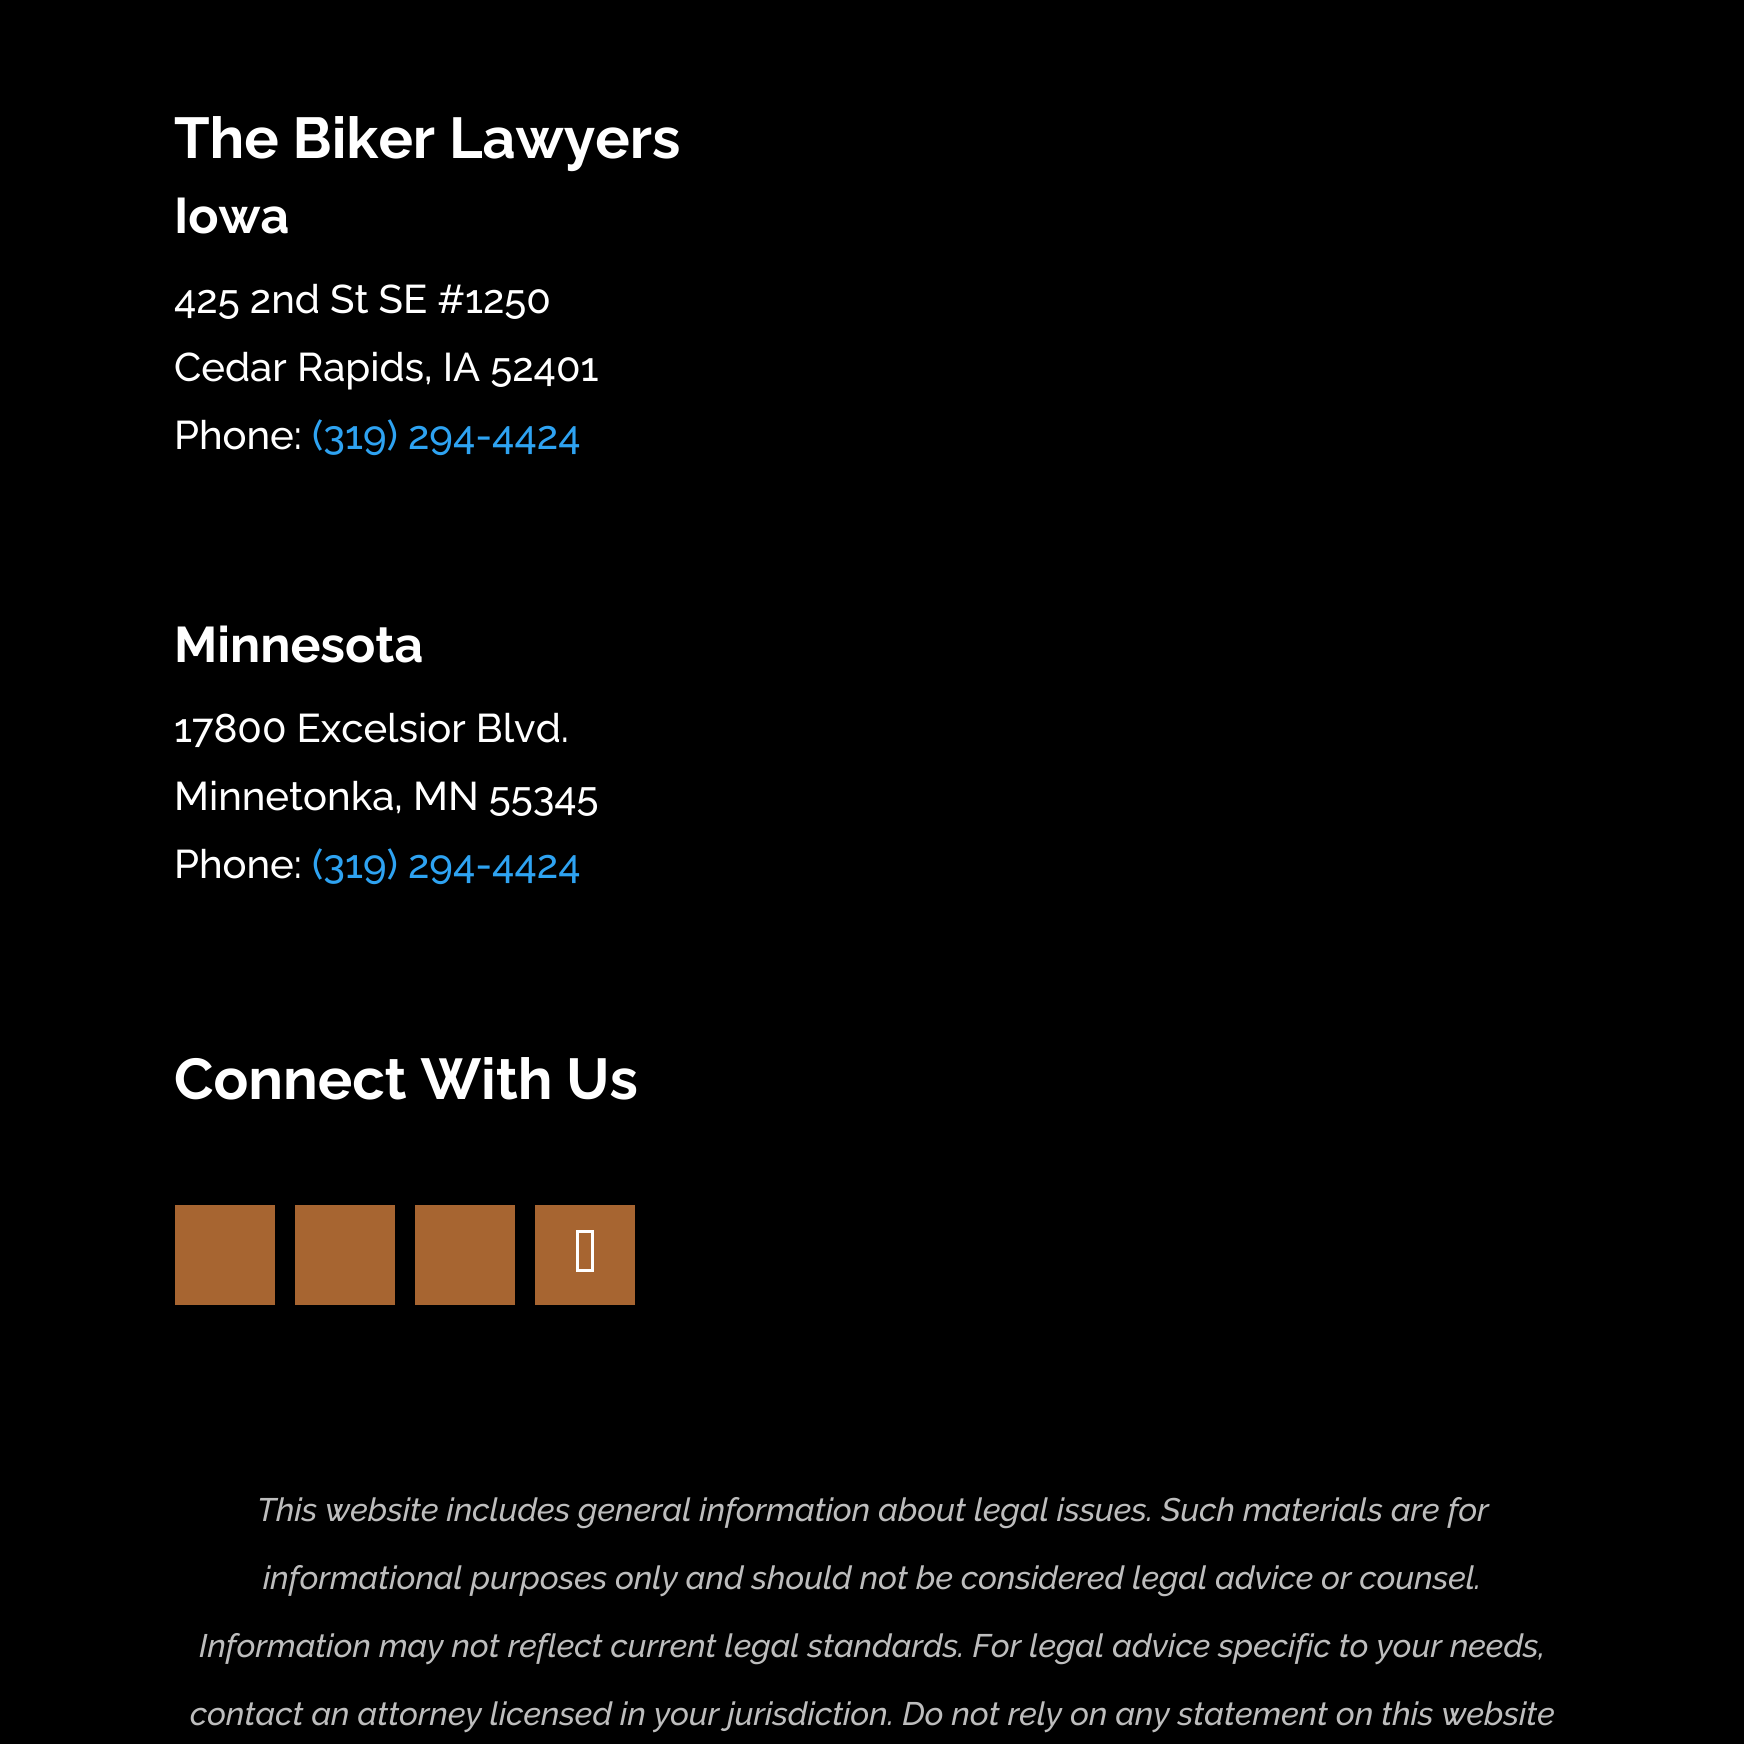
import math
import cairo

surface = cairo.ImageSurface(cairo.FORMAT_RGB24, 1744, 1744)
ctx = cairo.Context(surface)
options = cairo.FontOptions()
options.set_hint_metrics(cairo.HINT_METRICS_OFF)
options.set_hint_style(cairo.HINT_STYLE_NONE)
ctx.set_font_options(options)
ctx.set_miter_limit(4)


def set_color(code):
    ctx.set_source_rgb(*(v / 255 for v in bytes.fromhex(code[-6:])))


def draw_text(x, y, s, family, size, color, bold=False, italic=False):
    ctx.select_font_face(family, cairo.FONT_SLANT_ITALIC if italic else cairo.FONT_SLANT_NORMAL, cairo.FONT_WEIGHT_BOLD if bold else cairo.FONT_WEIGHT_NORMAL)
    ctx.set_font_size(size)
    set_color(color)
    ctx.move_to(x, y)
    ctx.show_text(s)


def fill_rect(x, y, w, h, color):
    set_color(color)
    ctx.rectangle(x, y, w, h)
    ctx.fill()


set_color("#000000")
ctx.paint()
draw_text(174, 158, "The Biker Lawyers", "Raleway", 57.5, "#ffffff", bold=True)
draw_text(174, 233, "Iowa", "Raleway", 50, "#ffffff", bold=True)
draw_text(174, 313, "425 2nd St SE #1250", "Raleway Medium", 40, "#ffffff")
draw_text(174, 381, "Cedar Rapids, IA 52401", "Raleway Medium", 40, "#ffffff")
draw_text(174, 449, "Phone:", "Raleway Medium", 40, "#ffffff")
draw_text(312, 449, "(319) 294-4424", "Raleway Medium", 40, "#2ea3f2")
draw_text(174, 662, "Minnesota", "Raleway", 50, "#ffffff", bold=True)
draw_text(174, 742, "17800 Excelsior Blvd.", "Raleway Medium", 40, "#ffffff")
draw_text(174, 810, "Minnetonka, MN 55345", "Raleway Medium", 40, "#ffffff")
draw_text(174, 878, "Phone:", "Raleway Medium", 40, "#ffffff")
draw_text(312, 878, "(319) 294-4424", "Raleway Medium", 40, "#2ea3f2")
draw_text(174, 1099, "Connect With Us", "Raleway", 57.5, "#ffffff", bold=True)
fill_rect(175, 1205, 100, 100, "#a76531")
fill_rect(295, 1205, 100, 100, "#a76531")
fill_rect(415, 1205, 100, 100, "#a76531")
fill_rect(535, 1205, 100, 100, "#a76531")
set_color("#ffffff")
ctx.new_path()
ctx.move_to(579, 1269)
ctx.line_to(579, 1233)
ctx.line_to(591, 1233)
ctx.line_to(591, 1269)
ctx.close_path()
ctx.move_to(576, 1272)
ctx.line_to(594, 1272)
ctx.line_to(594, 1230)
ctx.line_to(576, 1230)
ctx.close_path()
ctx.fill()
draw_text(257, 1521, "This website includes general information about legal issues. Such materials are for", "Raleway Medium", 32.5, "#bdbdbd", italic=True)
draw_text(263, 1589, "informational purposes only and should not be considered legal advice or counsel.", "Raleway Medium", 32.5, "#bdbdbd", italic=True)
draw_text(199, 1657, "Information may not reflect current legal standards. For legal advice specific to your needs,", "Raleway Medium", 32.5, "#bdbdbd", italic=True)
draw_text(190, 1725, "contact an attorney licensed in your jurisdiction. Do not rely on any statement on this website", "Raleway Medium", 32.5, "#bdbdbd", italic=True)
surface.write_to_png("output.png")
